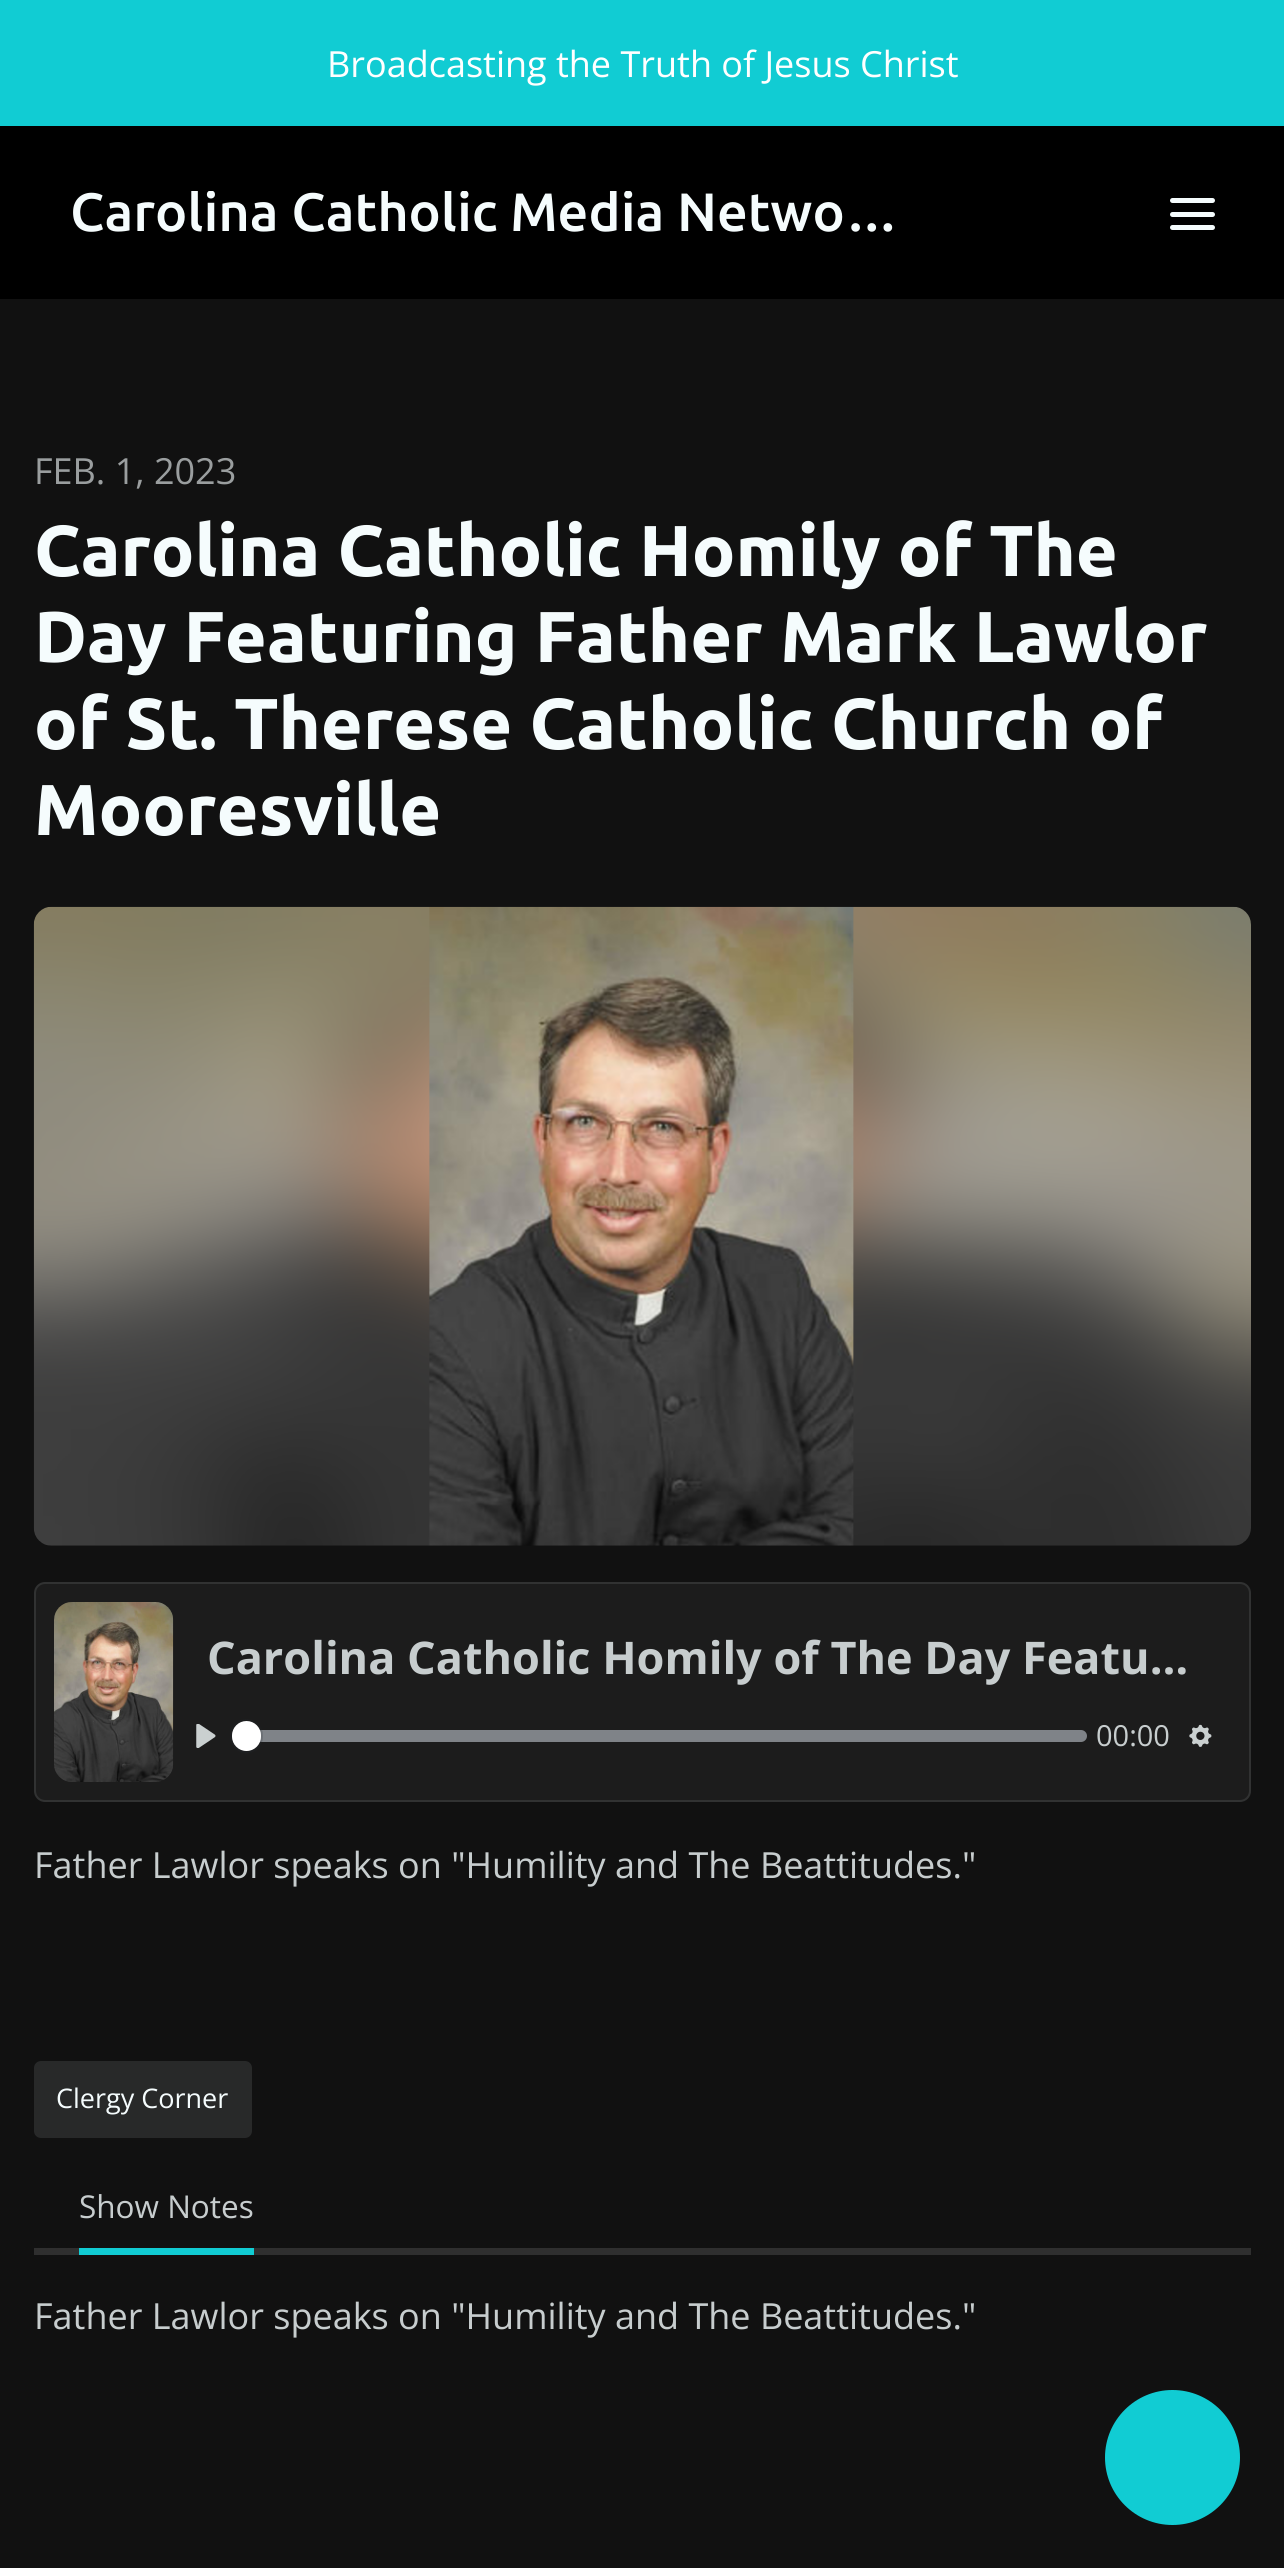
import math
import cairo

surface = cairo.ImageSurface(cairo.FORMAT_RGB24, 1284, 2568)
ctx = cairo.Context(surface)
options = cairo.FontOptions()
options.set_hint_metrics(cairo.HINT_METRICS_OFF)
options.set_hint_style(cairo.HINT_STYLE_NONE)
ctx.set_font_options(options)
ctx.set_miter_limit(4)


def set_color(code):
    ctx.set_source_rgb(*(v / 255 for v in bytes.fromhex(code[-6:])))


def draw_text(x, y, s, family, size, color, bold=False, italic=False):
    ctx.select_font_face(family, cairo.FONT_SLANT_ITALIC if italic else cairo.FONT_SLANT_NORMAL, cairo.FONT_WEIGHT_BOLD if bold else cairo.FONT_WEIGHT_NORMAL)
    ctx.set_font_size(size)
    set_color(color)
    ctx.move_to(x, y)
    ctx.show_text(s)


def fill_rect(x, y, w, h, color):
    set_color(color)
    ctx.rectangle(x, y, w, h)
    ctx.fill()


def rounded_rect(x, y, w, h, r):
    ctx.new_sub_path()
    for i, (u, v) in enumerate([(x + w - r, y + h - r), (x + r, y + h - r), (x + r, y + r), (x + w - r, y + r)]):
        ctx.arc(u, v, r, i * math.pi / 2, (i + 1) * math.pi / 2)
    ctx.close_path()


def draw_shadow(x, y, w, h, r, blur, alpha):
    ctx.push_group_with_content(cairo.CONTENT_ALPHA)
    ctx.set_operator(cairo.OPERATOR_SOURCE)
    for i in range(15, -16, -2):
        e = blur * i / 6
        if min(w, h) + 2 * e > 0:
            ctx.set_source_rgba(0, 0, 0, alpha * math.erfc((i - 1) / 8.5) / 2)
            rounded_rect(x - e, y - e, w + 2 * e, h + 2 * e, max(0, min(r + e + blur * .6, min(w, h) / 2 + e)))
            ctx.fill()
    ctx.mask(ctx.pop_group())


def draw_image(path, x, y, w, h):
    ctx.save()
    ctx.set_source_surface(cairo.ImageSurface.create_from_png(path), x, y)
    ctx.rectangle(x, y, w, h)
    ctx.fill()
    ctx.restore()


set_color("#111111")
ctx.paint()
fill_rect(0, 0, 1284, 126, "#11ccd3")
draw_text(327, 77, "Broadcasting the Truth of Jesus Christ", "Open Sans", 36, "#ffffff")
fill_rect(0, 126, 1284, 173, "#000000")
ctx.save()
ctx.rectangle(70, 191, 974, 45)
ctx.clip()
draw_text(70, 231, "Carolina Catholic Media Netwo…", "Ubuntu Medium", 54, "#f5fcfd")
ctx.restore()
set_color("#f5fcfd")
rounded_rect(1170, 198, 45, 5, 2.5)
ctx.fill()
rounded_rect(1170, 212, 45, 5, 2.5)
ctx.fill()
rounded_rect(1170, 225, 45, 5, 2.5)
ctx.fill()
draw_text(34, 484, "FEB. 1, 2023", "Open Sans", 36, "#9a9e9f")
draw_text(34, 576, "Carolina Catholic Homily of The", "Ubuntu", 72, "#f5fcfd", bold=True)
draw_text(34, 662, "Day Featuring Father Mark Lawlor", "Ubuntu", 72, "#f5fcfd", bold=True)
draw_text(34, 749, "of St. Therese Catholic Church of", "Ubuntu", 72, "#f5fcfd", bold=True)
draw_text(34, 835, "Mooresville", "Ubuntu", 72, "#f5fcfd", bold=True)
draw_image("assets/img1.png", 33, 906, 1218, 640)
set_color("#1c1c1c")
rounded_rect(34, 1582, 1217, 220, 11)
ctx.fill()
rounded_rect(35, 1583, 1215, 218, 10)
ctx.set_source_rgba(0.961, 0.988, 0.992, 0.1)
ctx.stroke()
draw_image("assets/img2.png", 54, 1602, 120, 180)
draw_text(207, 1674, "Carolina Catholic Homily of The Day Featu…", "Open Sans", 45, "#c7cdce", bold=True)
draw_image("assets/img3.png", 196, 1724, 20, 24)
ctx.set_source_rgba(0.757, 0.784, 0.82, 0.6)
rounded_rect(232, 1730, 855, 12, 6)
ctx.fill()
rounded_rect(231, 1720, 31, 32, 15.5)
ctx.set_source_rgba(0.137, 0.157, 0.184, 0.2)
ctx.stroke()
set_color("#23282f")
draw_shadow(232, 1724, 29, 29, 14.5, 1, 0.15)
set_color("#ffffff")
rounded_rect(232, 1721, 29, 30, 14.5)
ctx.fill()
draw_text(1096, 1746, "00:00", "Open Sans", 29, "#c7cdce")
draw_image("assets/img4.png", 1189, 1724, 23, 23)
draw_text(34, 1878, "Father Lawlor speaks on \"Humility and The Beattitudes.\"", "Open Sans", 36, "#c7cdce")
set_color("#282929")
rounded_rect(34, 2061, 218, 77, 7)
ctx.fill()
draw_text(56, 2108, "Clergy Corner", "Open Sans", 27, "#f5fcfd")
fill_rect(34, 2248, 1217, 7, "#2f2f2f")
fill_rect(79, 2248, 175, 7, "#11ccd3")
draw_text(79, 2218, "Show Notes", "Open Sans", 31.5, "#c7cdce")
draw_text(34, 2329, "Father Lawlor speaks on \"Humility and The Beattitudes.\"", "Open Sans", 36, "#c7cdce")
set_color("#11ccd3")
ctx.new_path()
ctx.arc(1172.5, 2457.5, 66.5, 0, 2 * math.pi)
ctx.fill_preserve()
ctx.stroke()
surface.write_to_png("output.png")
